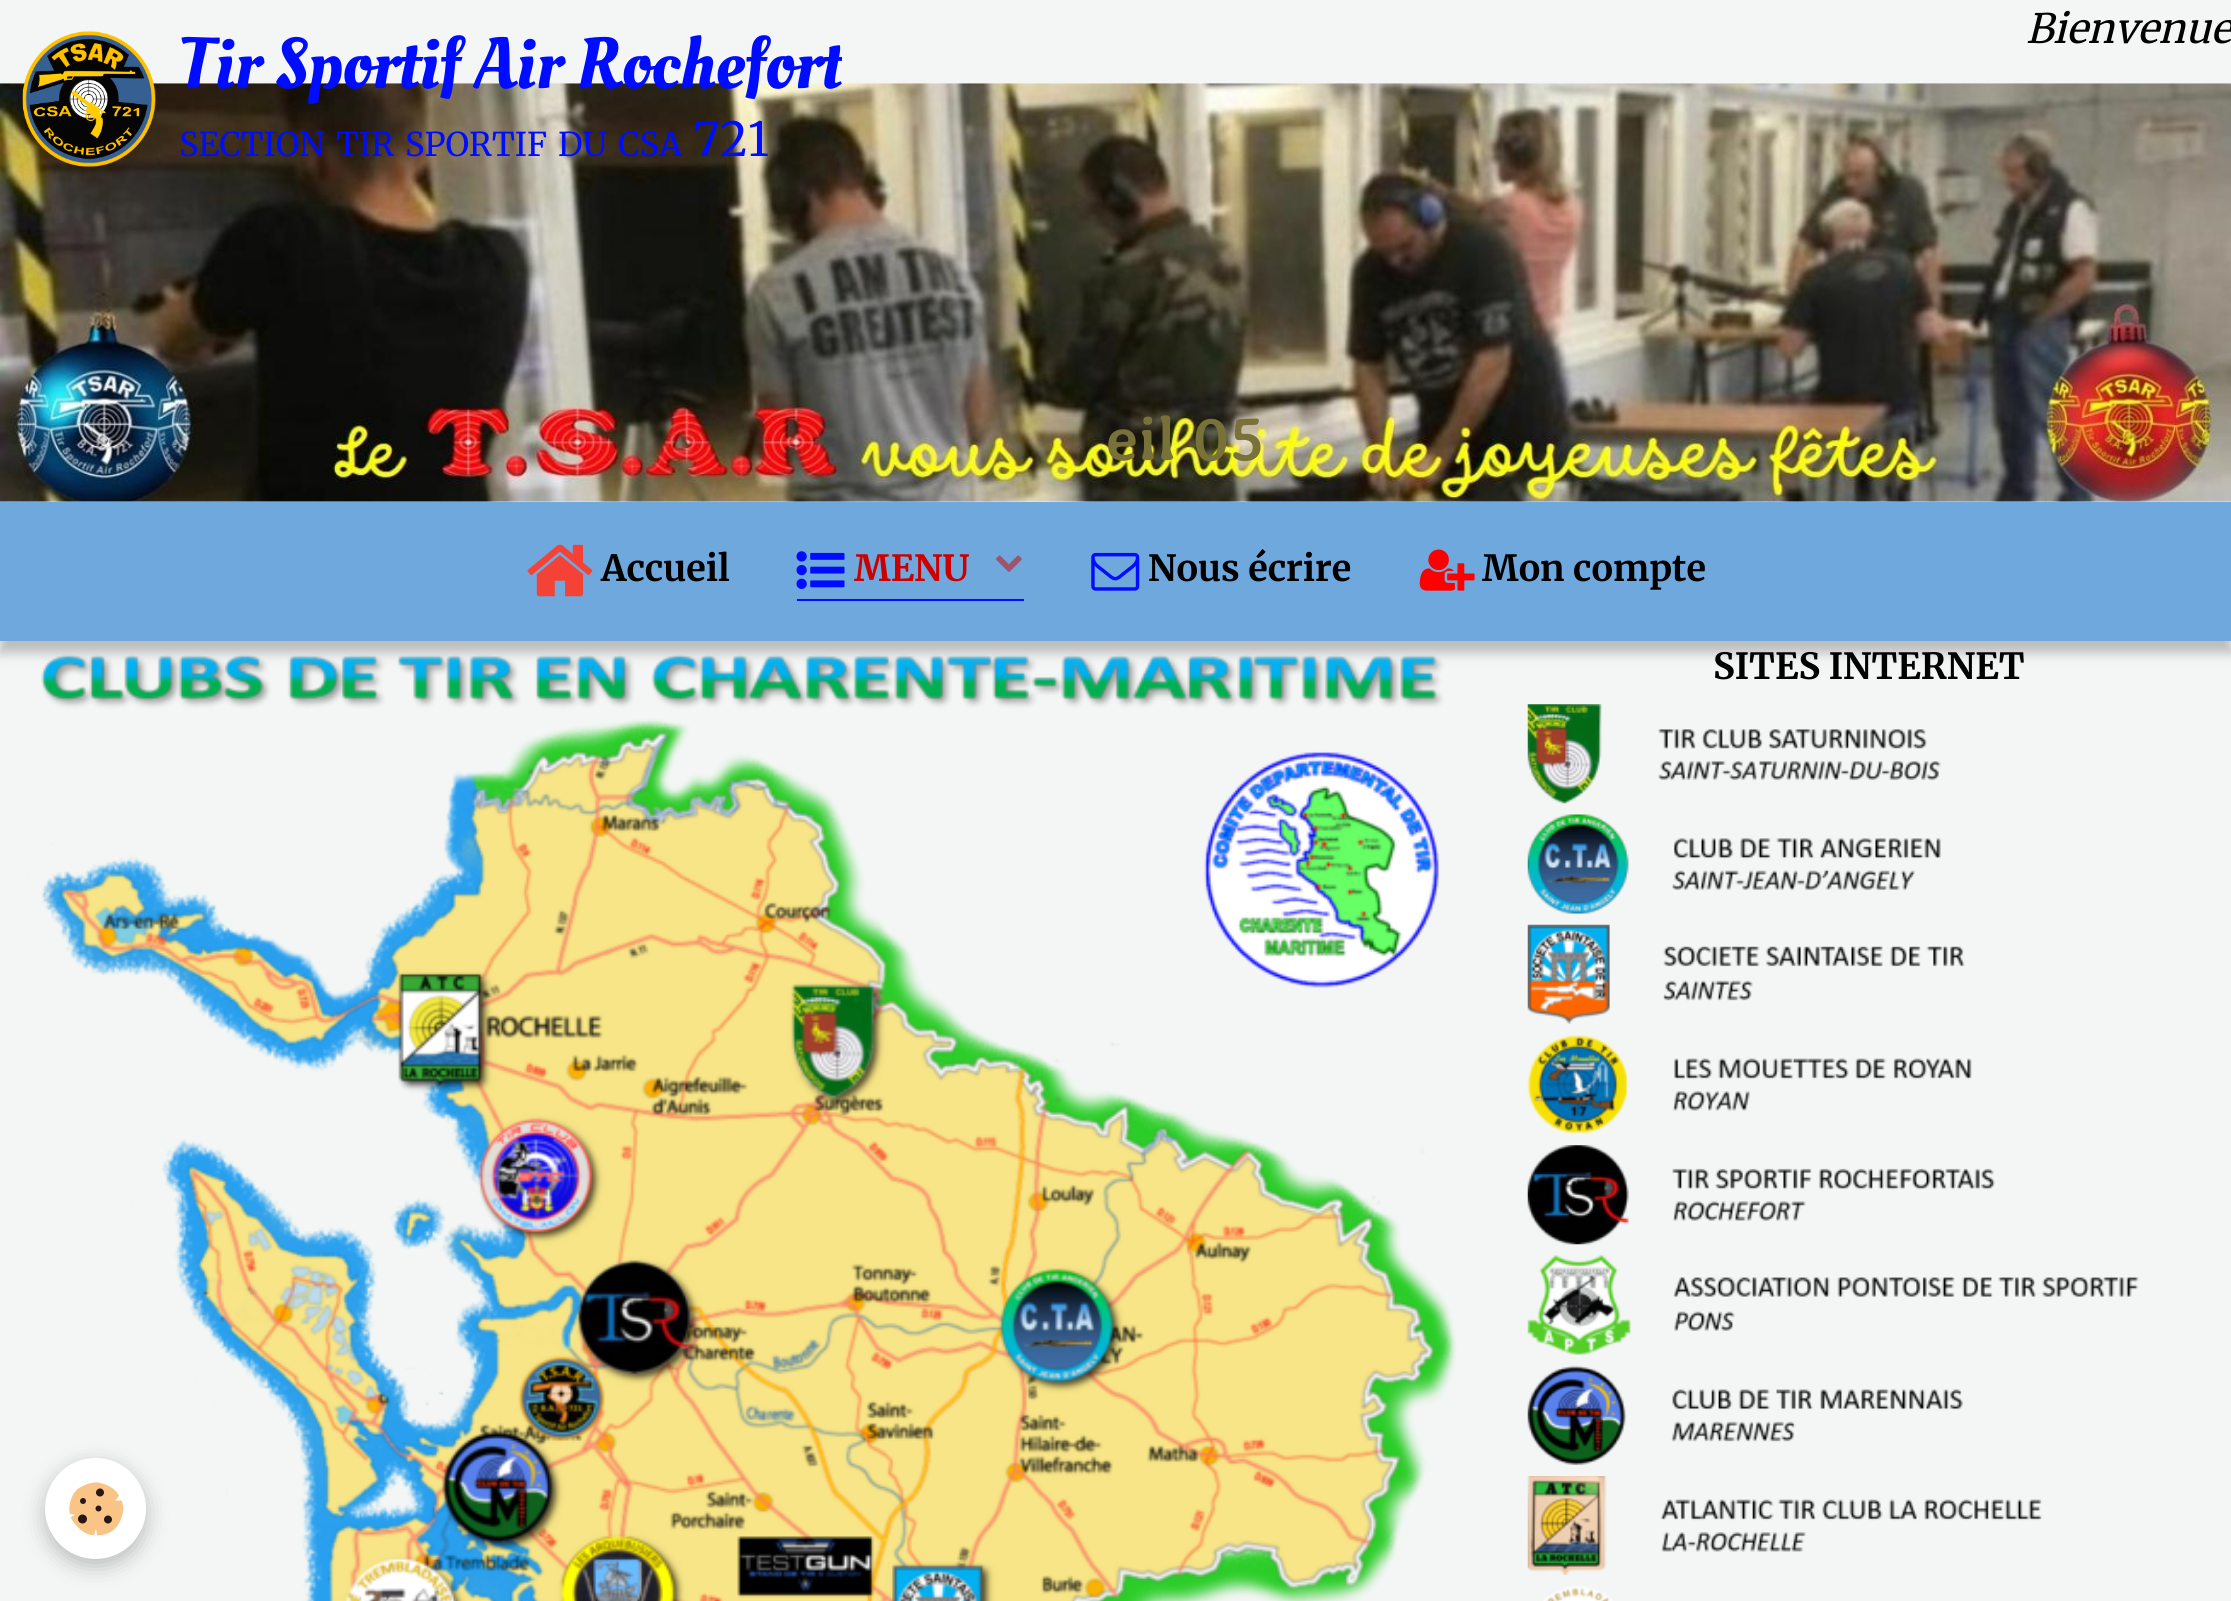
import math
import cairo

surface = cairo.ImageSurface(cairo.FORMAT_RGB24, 2231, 1601)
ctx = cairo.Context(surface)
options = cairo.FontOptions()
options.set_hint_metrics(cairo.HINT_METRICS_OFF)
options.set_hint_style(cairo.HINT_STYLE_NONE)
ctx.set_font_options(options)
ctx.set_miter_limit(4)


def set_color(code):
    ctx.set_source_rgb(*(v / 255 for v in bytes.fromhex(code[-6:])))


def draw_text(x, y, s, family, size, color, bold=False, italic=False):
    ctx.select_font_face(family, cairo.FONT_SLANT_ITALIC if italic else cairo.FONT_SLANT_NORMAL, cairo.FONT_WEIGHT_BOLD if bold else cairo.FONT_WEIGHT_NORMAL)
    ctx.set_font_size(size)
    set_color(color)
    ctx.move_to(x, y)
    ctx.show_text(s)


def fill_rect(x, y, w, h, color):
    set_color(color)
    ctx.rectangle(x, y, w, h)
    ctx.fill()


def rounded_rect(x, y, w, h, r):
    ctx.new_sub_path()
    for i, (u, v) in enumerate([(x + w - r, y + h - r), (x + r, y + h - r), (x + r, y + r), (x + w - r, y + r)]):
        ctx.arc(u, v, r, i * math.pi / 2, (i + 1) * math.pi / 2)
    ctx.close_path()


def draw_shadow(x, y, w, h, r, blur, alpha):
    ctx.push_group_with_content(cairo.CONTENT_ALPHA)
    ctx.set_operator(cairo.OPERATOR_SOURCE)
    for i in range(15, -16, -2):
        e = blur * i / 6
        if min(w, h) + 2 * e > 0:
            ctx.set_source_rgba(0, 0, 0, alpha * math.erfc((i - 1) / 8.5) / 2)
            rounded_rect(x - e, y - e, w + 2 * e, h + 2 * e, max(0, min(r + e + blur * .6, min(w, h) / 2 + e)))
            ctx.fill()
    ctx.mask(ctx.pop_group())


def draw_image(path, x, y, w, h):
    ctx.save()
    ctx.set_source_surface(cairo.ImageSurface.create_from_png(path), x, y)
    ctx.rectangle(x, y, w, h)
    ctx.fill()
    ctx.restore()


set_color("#f3f6f4")
ctx.paint()
draw_text(2026, 43, "Bienvenue", "Merriweather", 40.5, "#000000", italic=True)
draw_image("assets/img2.png", 0, 83, 2231, 419)
draw_image("assets/img1.png", 22, 31, 134, 136)
ctx.save()
ctx.rectangle(178, 23, 664, 85)
ctx.clip()
draw_text(179, 88, "Tir Sportif Air Rochefort", "Oleo Script", 72, "#000cff")
ctx.restore()
draw_text(179, 156, "SECTION", "Merriweather", 32.75, "#000cff")
draw_text(336, 156, "TIR", "Merriweather", 32.75, "#000cff")
draw_text(405, 156, "SPORTIF", "Merriweather", 32.75, "#000cff")
draw_text(558, 156, "DU", "Merriweather", 32.75, "#000cff")
draw_text(618, 156, "CSA", "Merriweather", 32.75, "#000cff")
draw_text(693, 156, "721", "Merriweather", 47, "#000cff")
draw_text(1106, 460, "eil 05", "Averia Libre", 62, "#78723a", bold=True)
draw_image("assets/img8.png", 27, 654, 1430, 947)
set_color("#bcbcbc")
draw_shadow(0, 513, 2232, 140, 0, 5.5, 1)
fill_rect(0, 502, 2231, 139, "#6fa8dc")
draw_image("assets/img3.png", 527, 544, 66, 53)
draw_text(601, 581, "Accueil", "Merriweather", 36, "#000000", bold=True)
draw_image("assets/img4.png", 796, 551, 49, 38)
draw_text(854, 581, "MENU", "Merriweather", 36, "#cc0000", bold=True)
draw_image("assets/img5.png", 996, 555, 26, 17)
fill_rect(797, 599, 227, 2, "#000cff")
draw_image("assets/img6.png", 1091, 552, 49, 39)
draw_text(1148, 581, "Nous écrire", "Merriweather", 36, "#000000", bold=True)
draw_image("assets/img7.png", 1419, 549, 56, 42)
draw_text(1482, 581, "Mon compte", "Merriweather", 36, "#000000", bold=True)
draw_text(1713, 679, "SITES INTERNET", "Merriweather", 36, "#000000", bold=True)
draw_image("assets/img9.png", 1527, 704, 414, 100)
draw_image("assets/img10.png", 1527, 814, 414, 100)
draw_image("assets/img11.png", 1527, 924, 438, 100)
draw_image("assets/img12.png", 1527, 1035, 445, 99)
draw_image("assets/img13.png", 1527, 1145, 468, 100)
draw_image("assets/img14.png", 1527, 1255, 612, 100)
draw_image("assets/img15.png", 1527, 1365, 436, 100)
draw_image("assets/img16.png", 1527, 1476, 515, 99)
draw_image("assets/img17.png", 1543, 1586, 70, 15)
set_color("#000000")
draw_shadow(45, 1465, 101, 101, 50.5, 11, 0.24)
set_color("#ffffff")
ctx.arc(95.5, 1508.5, 50.5, 0, 2 * math.pi)
ctx.fill()
draw_image("assets/img18.png", 69, 1482, 55, 54)
surface.write_to_png("output.png")
